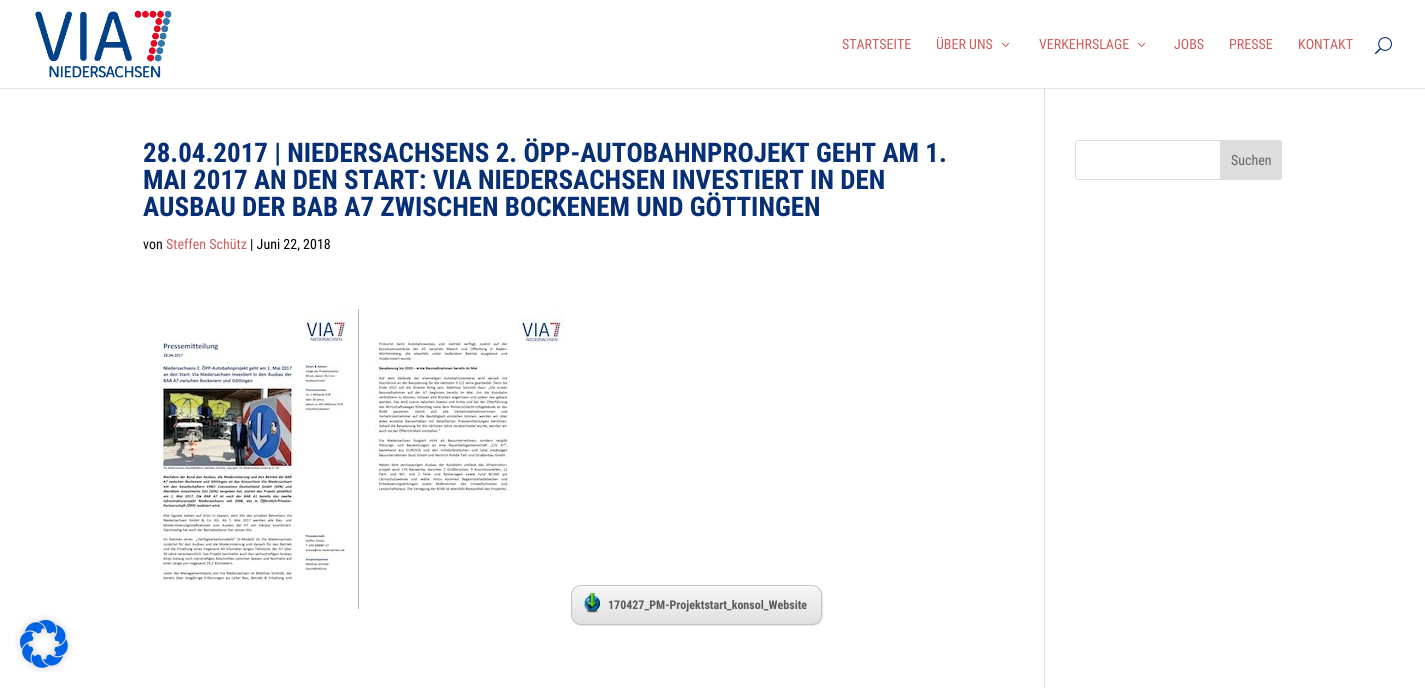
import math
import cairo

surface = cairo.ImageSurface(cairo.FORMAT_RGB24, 1425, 688)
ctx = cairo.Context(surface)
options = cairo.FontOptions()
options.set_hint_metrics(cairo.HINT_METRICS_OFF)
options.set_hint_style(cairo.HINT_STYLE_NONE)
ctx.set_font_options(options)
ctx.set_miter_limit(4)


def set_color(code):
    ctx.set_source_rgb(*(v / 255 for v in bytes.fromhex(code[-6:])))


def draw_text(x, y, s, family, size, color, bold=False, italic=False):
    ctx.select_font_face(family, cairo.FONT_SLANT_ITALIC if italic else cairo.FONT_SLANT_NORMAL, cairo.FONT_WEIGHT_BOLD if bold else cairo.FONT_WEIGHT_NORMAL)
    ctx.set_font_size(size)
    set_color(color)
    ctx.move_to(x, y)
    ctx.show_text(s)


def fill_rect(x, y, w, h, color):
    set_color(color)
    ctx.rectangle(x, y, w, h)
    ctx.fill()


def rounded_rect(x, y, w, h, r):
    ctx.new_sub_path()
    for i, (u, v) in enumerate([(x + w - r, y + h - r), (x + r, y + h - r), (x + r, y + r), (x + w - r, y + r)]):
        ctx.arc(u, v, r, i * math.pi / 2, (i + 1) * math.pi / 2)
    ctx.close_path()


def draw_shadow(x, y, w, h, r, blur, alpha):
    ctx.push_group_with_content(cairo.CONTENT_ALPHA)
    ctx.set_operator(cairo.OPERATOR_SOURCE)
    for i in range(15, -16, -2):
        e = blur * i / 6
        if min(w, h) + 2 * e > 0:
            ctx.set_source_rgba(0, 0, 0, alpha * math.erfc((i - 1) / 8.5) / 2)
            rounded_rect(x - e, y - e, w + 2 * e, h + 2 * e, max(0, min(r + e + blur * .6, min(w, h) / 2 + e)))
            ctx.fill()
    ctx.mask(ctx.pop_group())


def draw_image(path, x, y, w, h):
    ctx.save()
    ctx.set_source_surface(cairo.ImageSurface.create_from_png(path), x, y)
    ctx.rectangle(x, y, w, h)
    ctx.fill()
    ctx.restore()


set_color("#ffffff")
ctx.paint()
fill_rect(0, 88, 1425, 1, "#e6e6e6")
fill_rect(1044, 82, 1, 606, "#e2e2e2")
fill_rect(1044, 82, 1, 6, "#ffffff")
draw_image("assets/img1.png", 35, 10, 137, 68)
draw_text(842, 49, "STARTSEITE", "Roboto Condensed", 14, "#cd5c5c")
draw_text(936, 49, "ÜBER UNS", "Roboto Condensed", 14, "#cd5c5c")
draw_image("assets/img2.png", 1001, 42, 9, 5)
draw_text(1039, 49, "VERKEHRSLAGE", "Roboto Condensed", 14, "#cd5c5c")
draw_image("assets/img2.png", 1137, 42, 9, 5)
draw_text(1174, 49, "JOBS", "Roboto Condensed", 14, "#cd5c5c")
draw_text(1229, 49, "PRESSE", "Roboto Condensed", 14, "#cd5c5c")
draw_text(1298, 49, "KONTAKT", "Roboto Condensed", 14, "#cd5c5c")
draw_image("assets/img3.png", 1375, 37, 17, 18)
fill_rect(1044, 88, 1, 1, "#cbcbcb")
draw_text(143, 162, "28.04.2017 | NIEDERSACHSENS 2. ÖPP-AUTOBAHNPROJEKT GEHT AM 1.", "Roboto Condensed", 27, "#062f75", bold=True)
draw_text(143, 189, "MAI 2017 AN DEN START: VIA NIEDERSACHSEN INVESTIERT IN DEN", "Roboto Condensed", 27, "#062f75", bold=True)
draw_text(143, 216, "AUSBAU DER BAB A7 ZWISCHEN BOCKENEM UND GÖTTINGEN", "Roboto Condensed", 27, "#062f75", bold=True)
draw_text(143, 249, "von", "Roboto Condensed", 14, "#000000")
draw_text(166, 249, "Steffen Schütz", "Roboto Condensed", 14, "#cd5c5c")
draw_text(250, 249, "| Juni 22, 2018", "Roboto Condensed", 14, "#000000")
draw_image("assets/img4.png", 159, 309, 192, 272)
draw_image("assets/img5.png", 358, 309, 208, 300)
set_color("#000000")
draw_shadow(572, 586, 251, 40, 10, 0.5, 0.1)
ctx.save()
rounded_rect(571, 585, 251, 40, 10)
ctx.clip()
gradient = cairo.LinearGradient(697, 586, 697, 624)
gradient.add_color_stop_rgba(0, 0.961, 0.961, 0.961, 1)
gradient.add_color_stop_rgba(1, 0.882, 0.882, 0.882, 1)
ctx.set_source(gradient)
ctx.rectangle(571, 586, 251, 38)
ctx.fill()
ctx.restore()
set_color("#fefefe")
ctx.new_path()
ctx.move_to(581, 587)
ctx.line_to(812, 587)
ctx.curve_to(817, 587, 821, 591, 821, 596)
ctx.line_to(821, 595)
ctx.curve_to(821, 590, 817, 586, 812, 586)
ctx.line_to(581, 586)
ctx.curve_to(576, 586, 572, 590, 572, 595)
ctx.line_to(572, 596)
ctx.curve_to(572, 591, 576, 587, 581, 587)
ctx.close_path()
ctx.fill()
rounded_rect(571.5, 585.5, 250, 39, 9.5)
set_color("#c3c3c3")
ctx.set_line_width(1)
ctx.stroke()
draw_image("assets/img6.png", 584, 593, 17, 20)
draw_text(608, 609, "170427_PM-Projektstart_konsol_Website", "Roboto Condensed", 12, "#595a5a", bold=True)
rounded_rect(1075.5, 140.5, 206, 39, 2.5)
set_color("#dddddd")
ctx.stroke()
ctx.new_path()
ctx.move_to(1220.5, 140.5)
ctx.line_to(1279, 140.5)
ctx.curve_to(1280.5, 140.5, 1281.5, 141.5, 1281.5, 143)
ctx.line_to(1281.5, 177)
ctx.curve_to(1281.5, 178.5, 1280.5, 179.5, 1279, 179.5)
ctx.line_to(1220.5, 179.5)
ctx.close_path()
ctx.fill_preserve()
ctx.stroke()
draw_text(1231, 165, "Suchen", "Roboto Condensed", 14, "#666666")
draw_image("assets/img7.png", 15, 615, 57, 57)
surface.write_to_png("output.png")
